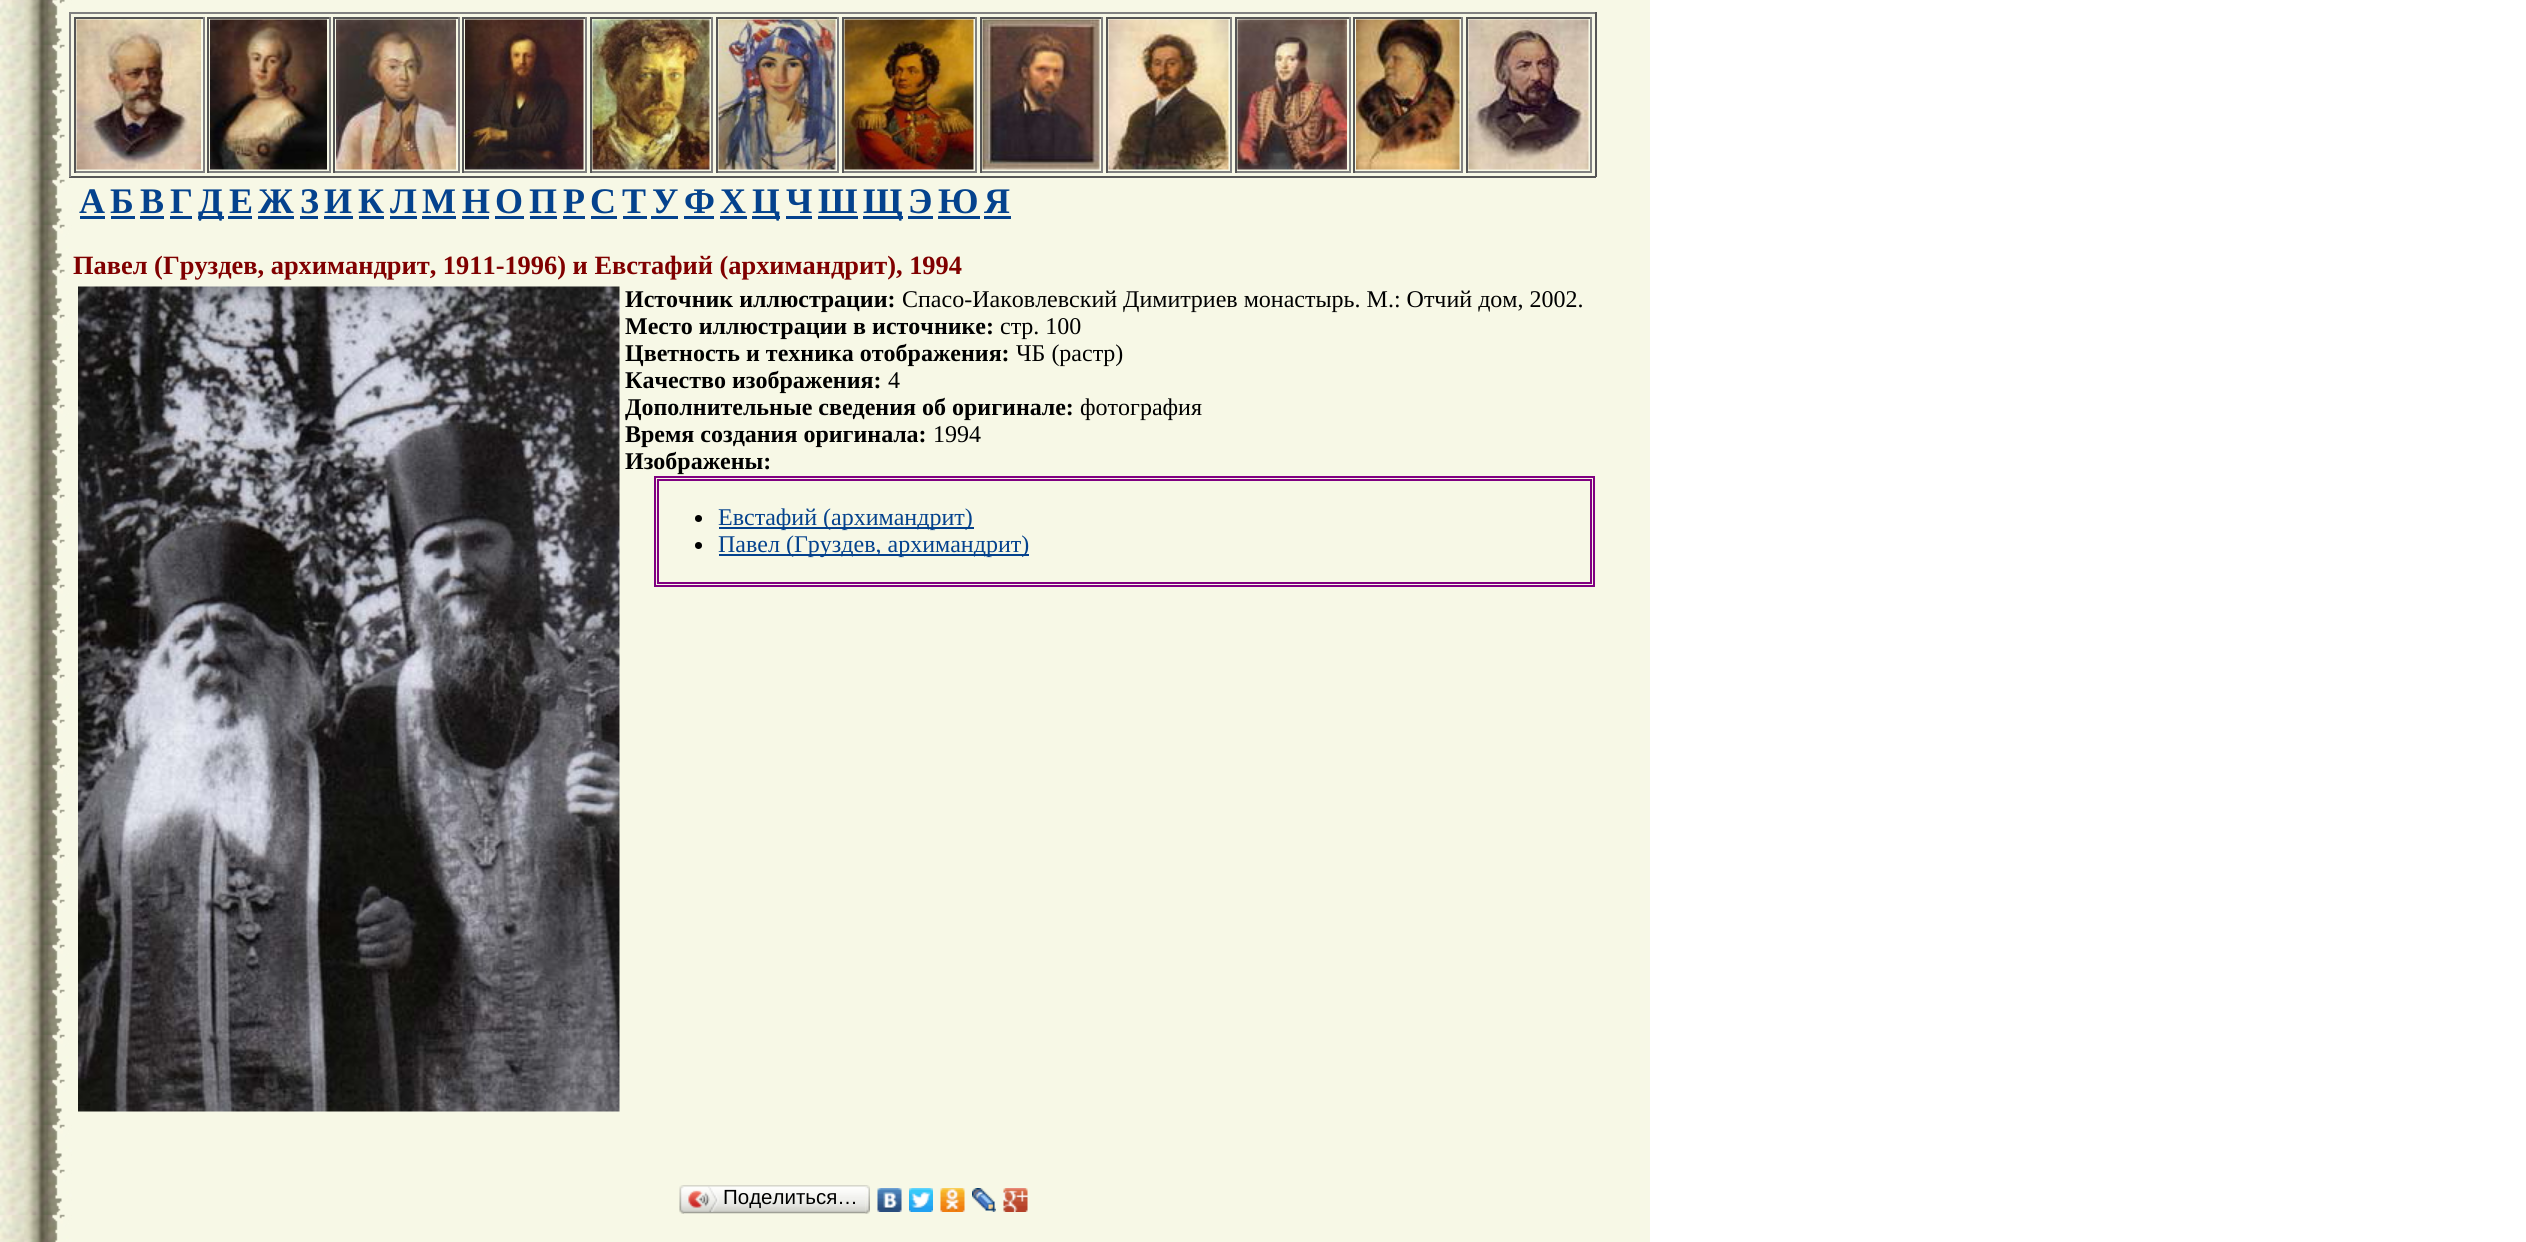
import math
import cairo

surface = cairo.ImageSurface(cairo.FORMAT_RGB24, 2526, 1242)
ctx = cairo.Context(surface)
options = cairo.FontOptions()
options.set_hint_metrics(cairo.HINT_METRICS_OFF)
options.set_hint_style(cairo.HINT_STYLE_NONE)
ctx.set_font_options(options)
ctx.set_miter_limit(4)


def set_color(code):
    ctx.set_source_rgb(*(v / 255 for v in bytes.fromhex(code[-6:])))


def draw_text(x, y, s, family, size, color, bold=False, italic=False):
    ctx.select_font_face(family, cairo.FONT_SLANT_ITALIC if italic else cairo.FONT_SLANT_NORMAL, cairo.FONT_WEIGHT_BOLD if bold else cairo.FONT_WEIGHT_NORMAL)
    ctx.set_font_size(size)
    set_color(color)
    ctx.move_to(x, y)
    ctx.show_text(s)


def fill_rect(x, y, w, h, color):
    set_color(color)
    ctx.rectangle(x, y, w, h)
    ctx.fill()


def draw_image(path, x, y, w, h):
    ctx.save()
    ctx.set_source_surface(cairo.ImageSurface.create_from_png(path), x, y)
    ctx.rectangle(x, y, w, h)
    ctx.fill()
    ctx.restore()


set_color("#ffffff")
ctx.paint()
draw_image("assets/img1.png", 0, 0, 1650, 1242)
fill_rect(69, 12, 1527, 2, "#808080")
fill_rect(1595, 12, 2, 165, "#555555")
fill_rect(69, 176, 1527, 2, "#555555")
fill_rect(69, 12, 2, 165, "#808080")
fill_rect(74, 17, 130, 2, "#555555")
fill_rect(203, 17, 2, 156, "#808080")
fill_rect(74, 171, 130, 2, "#808080")
fill_rect(74, 17, 2, 156, "#555555")
draw_image("assets/img2.png", 76, 19, 125, 151)
fill_rect(207, 17, 123, 2, "#555555")
fill_rect(329, 17, 2, 156, "#808080")
fill_rect(207, 171, 123, 2, "#808080")
fill_rect(207, 17, 2, 156, "#555555")
draw_image("assets/img3.png", 210, 19, 117, 151)
fill_rect(333, 17, 126, 2, "#555555")
fill_rect(458, 17, 2, 156, "#808080")
fill_rect(333, 171, 126, 2, "#808080")
fill_rect(333, 17, 2, 156, "#555555")
draw_image("assets/img4.png", 336, 19, 120, 151)
fill_rect(462, 17, 125, 2, "#555555")
fill_rect(585, 17, 2, 156, "#808080")
fill_rect(462, 171, 125, 2, "#808080")
fill_rect(462, 17, 2, 156, "#555555")
draw_image("assets/img5.png", 465, 19, 119, 151)
fill_rect(590, 17, 123, 2, "#555555")
fill_rect(711, 17, 2, 156, "#808080")
fill_rect(590, 171, 123, 2, "#808080")
fill_rect(590, 17, 2, 156, "#555555")
draw_image("assets/img6.png", 592, 19, 118, 151)
fill_rect(716, 17, 123, 2, "#555555")
fill_rect(837, 17, 2, 156, "#808080")
fill_rect(716, 171, 123, 2, "#808080")
fill_rect(716, 17, 2, 156, "#555555")
draw_image("assets/img7.png", 718, 19, 118, 151)
fill_rect(842, 17, 135, 2, "#555555")
fill_rect(975, 17, 2, 156, "#808080")
fill_rect(842, 171, 135, 2, "#808080")
fill_rect(842, 17, 2, 156, "#555555")
draw_image("assets/img8.png", 844, 19, 130, 151)
fill_rect(980, 17, 123, 2, "#555555")
fill_rect(1101, 17, 2, 156, "#808080")
fill_rect(980, 171, 123, 2, "#808080")
fill_rect(980, 17, 2, 156, "#555555")
draw_image("assets/img9.png", 982, 19, 118, 151)
fill_rect(1106, 17, 126, 2, "#555555")
fill_rect(1230, 17, 2, 156, "#808080")
fill_rect(1106, 171, 126, 2, "#808080")
fill_rect(1106, 17, 2, 156, "#555555")
draw_image("assets/img10.png", 1108, 19, 121, 151)
fill_rect(1235, 17, 115, 2, "#555555")
fill_rect(1349, 17, 2, 156, "#808080")
fill_rect(1235, 171, 115, 2, "#808080")
fill_rect(1235, 17, 2, 156, "#555555")
draw_image("assets/img11.png", 1237, 19, 110, 151)
fill_rect(1353, 17, 110, 2, "#555555")
fill_rect(1461, 17, 2, 156, "#808080")
fill_rect(1353, 171, 110, 2, "#808080")
fill_rect(1353, 17, 2, 156, "#555555")
draw_image("assets/img12.png", 1356, 19, 104, 151)
fill_rect(1466, 17, 126, 2, "#555555")
fill_rect(1590, 17, 2, 156, "#808080")
fill_rect(1466, 171, 126, 2, "#808080")
fill_rect(1466, 17, 2, 156, "#555555")
draw_image("assets/img13.png", 1468, 19, 121, 151)
draw_text(79, 213, "А", "Liberation Serif", 36, "#04428d", bold=True)
fill_rect(80, 216, 25, 3, "#04428d")
draw_text(110, 213, "Б", "Liberation Serif", 36, "#04428d", bold=True)
fill_rect(111, 216, 24, 3, "#04428d")
draw_text(140, 213, "В", "Liberation Serif", 36, "#04428d", bold=True)
fill_rect(140, 216, 24, 3, "#04428d")
draw_text(170, 213, "Г", "Liberation Serif", 36, "#04428d", bold=True)
fill_rect(170, 216, 22, 3, "#04428d")
fill_rect(198, 216, 26, 3, "#04428d")
draw_text(198, 213, "Д", "Liberation Serif", 36, "#04428d", bold=True)
draw_text(229, 213, "Е", "Liberation Serif", 36, "#04428d", bold=True)
fill_rect(228, 216, 24, 3, "#04428d")
draw_text(258, 213, "Ж", "Liberation Serif", 36, "#04428d", bold=True)
fill_rect(258, 216, 36, 3, "#04428d")
draw_text(300, 213, "З", "Liberation Serif", 36, "#04428d", bold=True)
fill_rect(300, 216, 18, 3, "#04428d")
draw_text(324, 213, "И", "Liberation Serif", 36, "#04428d", bold=True)
fill_rect(324, 216, 29, 3, "#04428d")
draw_text(358, 213, "К", "Liberation Serif", 36, "#04428d", bold=True)
fill_rect(359, 216, 25, 3, "#04428d")
draw_text(390, 213, "Л", "Liberation Serif", 36, "#04428d", bold=True)
fill_rect(390, 216, 27, 3, "#04428d")
draw_text(422, 213, "М", "Liberation Serif", 36, "#04428d", bold=True)
fill_rect(422, 216, 34, 3, "#04428d")
draw_text(462, 213, "Н", "Liberation Serif", 36, "#04428d", bold=True)
fill_rect(462, 216, 27, 3, "#04428d")
draw_text(495, 213, "О", "Liberation Serif", 36, "#04428d", bold=True)
fill_rect(495, 216, 29, 3, "#04428d")
draw_text(529, 213, "П", "Liberation Serif", 36, "#04428d", bold=True)
fill_rect(530, 216, 27, 3, "#04428d")
draw_text(563, 213, "Р", "Liberation Serif", 36, "#04428d", bold=True)
fill_rect(563, 216, 22, 3, "#04428d")
draw_text(590, 213, "С", "Liberation Serif", 36, "#04428d", bold=True)
fill_rect(591, 216, 26, 3, "#04428d")
draw_text(622, 213, "Т", "Liberation Serif", 36, "#04428d", bold=True)
fill_rect(623, 216, 24, 3, "#04428d")
draw_text(652, 213, "У", "Liberation Serif", 36, "#04428d", bold=True)
fill_rect(651, 216, 27, 3, "#04428d")
draw_text(684, 213, "Ф", "Liberation Serif", 36, "#04428d", bold=True)
fill_rect(684, 216, 30, 3, "#04428d")
draw_text(720, 213, "Х", "Liberation Serif", 36, "#04428d", bold=True)
fill_rect(720, 216, 27, 3, "#04428d")
fill_rect(752, 216, 28, 3, "#04428d")
draw_text(752, 213, "Ц", "Liberation Serif", 36, "#04428d", bold=True)
draw_text(786, 213, "Ч", "Liberation Serif", 36, "#04428d", bold=True)
fill_rect(786, 216, 26, 3, "#04428d")
draw_text(818, 213, "Ш", "Liberation Serif", 36, "#04428d", bold=True)
fill_rect(818, 216, 40, 3, "#04428d")
fill_rect(863, 216, 40, 3, "#04428d")
draw_text(863, 213, "Щ", "Liberation Serif", 36, "#04428d", bold=True)
draw_text(908, 213, "Э", "Liberation Serif", 36, "#04428d", bold=True)
fill_rect(908, 216, 25, 3, "#04428d")
draw_text(938, 213, "Ю", "Liberation Serif", 36, "#04428d", bold=True)
fill_rect(938, 216, 42, 3, "#04428d")
draw_text(984, 213, "Я", "Liberation Serif", 36, "#04428d", bold=True)
fill_rect(984, 216, 27, 3, "#04428d")
draw_text(73, 274, "Павел (Груздев, архимандрит, 1911-1996) и Евстафий (архимандрит), 1994", "Liberation Serif", 26.4, "#800000", bold=True)
draw_image("assets/img14.png", 78, 286, 542, 826)
draw_text(625, 307, "Источник иллюстрации:", "Liberation Serif", 24, "#000000", bold=True)
draw_text(902, 307, "Спасо-Иаковлевский Димитриев монастырь. М.: Отчий дом, 2002.", "Liberation Serif", 24, "#000000")
draw_text(625, 334, "Место иллюстрации в источнике:", "Liberation Serif", 24, "#000000", bold=True)
draw_text(1000, 334, "стр. 100", "Liberation Serif", 24, "#000000")
draw_text(625, 361, "Цветность и техника отображения:", "Liberation Serif", 24, "#000000", bold=True)
draw_text(1016, 361, "ЧБ (растр)", "Liberation Serif", 24, "#000000")
draw_text(625, 388, "Качество изображения:", "Liberation Serif", 24, "#000000", bold=True)
draw_text(888, 388, "4", "Liberation Serif", 24, "#000000")
draw_text(625, 415, "Дополнительные сведения об оригинале:", "Liberation Serif", 24, "#000000", bold=True)
draw_text(1080, 415, "фотография", "Liberation Serif", 24, "#000000")
draw_text(625, 442, "Время создания оригинала:", "Liberation Serif", 24, "#000000", bold=True)
draw_text(933, 442, "1994", "Liberation Serif", 24, "#000000")
draw_text(625, 469, "Изображены:", "Liberation Serif", 24, "#000000", bold=True)
ctx.rectangle(655, 477, 939, 109)
set_color("#800080")
ctx.stroke()
ctx.rectangle(658, 480, 933, 103)
ctx.stroke()
set_color("#000000")
ctx.arc(698.5, 518.5, 3.5, 0, 2 * math.pi)
ctx.fill()
fill_rect(719, 527, 255, 2, "#04428d")
draw_text(718, 525, "Евстафий (архимандрит)", "Liberation Serif", 24, "#04428d")
set_color("#000000")
ctx.new_path()
ctx.arc(698.5, 545.5, 3.5, 0, 2 * math.pi)
ctx.fill()
fill_rect(719, 554, 310, 2, "#04428d")
draw_text(718, 552, "Павел (Груздев, архимандрит)", "Liberation Serif", 24, "#04428d")
draw_image("assets/img15.png", 684, 1185, 182, 29)
draw_image("assets/img16.png", 679, 1185, 5, 29)
draw_image("assets/img17.png", 688, 1186, 31, 26)
draw_text(723, 1204, "Поделиться…", "Liberation Sans", 20.5, "#000000")
draw_image("assets/img18.png", 865, 1185, 5, 29)
draw_image("assets/img19.png", 877, 1188, 25, 24)
draw_image("assets/img20.png", 909, 1188, 24, 24)
draw_image("assets/img21.png", 940, 1188, 25, 24)
draw_image("assets/img22.png", 972, 1188, 24, 24)
draw_image("assets/img23.png", 1003, 1188, 25, 24)
surface.write_to_png("output.png")
